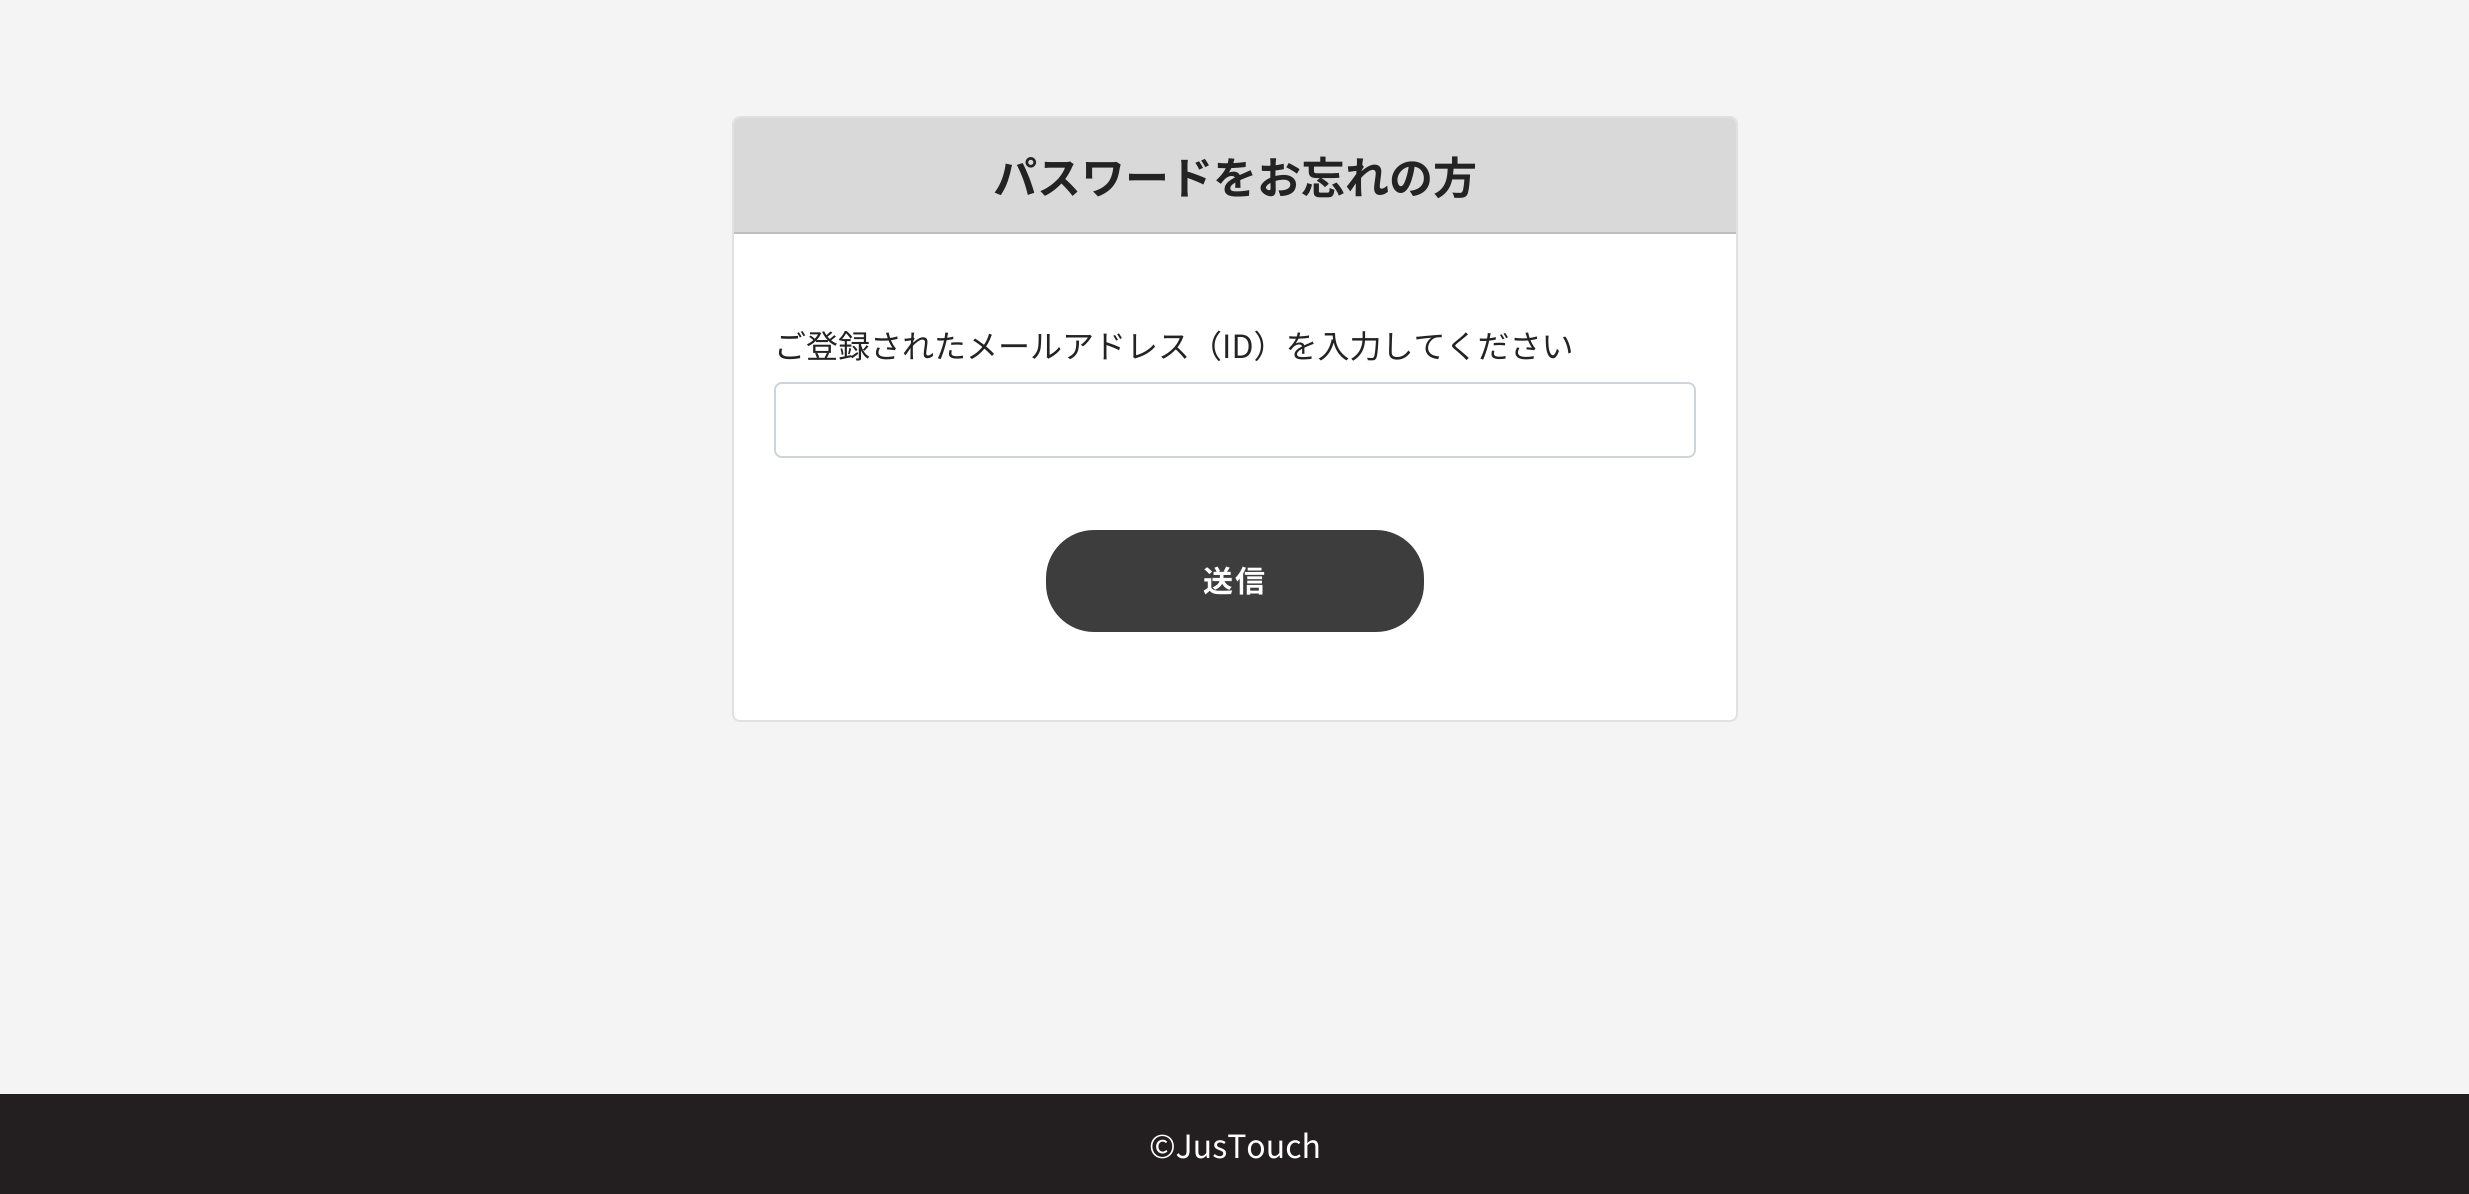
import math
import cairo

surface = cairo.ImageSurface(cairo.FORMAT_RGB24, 2469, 1194)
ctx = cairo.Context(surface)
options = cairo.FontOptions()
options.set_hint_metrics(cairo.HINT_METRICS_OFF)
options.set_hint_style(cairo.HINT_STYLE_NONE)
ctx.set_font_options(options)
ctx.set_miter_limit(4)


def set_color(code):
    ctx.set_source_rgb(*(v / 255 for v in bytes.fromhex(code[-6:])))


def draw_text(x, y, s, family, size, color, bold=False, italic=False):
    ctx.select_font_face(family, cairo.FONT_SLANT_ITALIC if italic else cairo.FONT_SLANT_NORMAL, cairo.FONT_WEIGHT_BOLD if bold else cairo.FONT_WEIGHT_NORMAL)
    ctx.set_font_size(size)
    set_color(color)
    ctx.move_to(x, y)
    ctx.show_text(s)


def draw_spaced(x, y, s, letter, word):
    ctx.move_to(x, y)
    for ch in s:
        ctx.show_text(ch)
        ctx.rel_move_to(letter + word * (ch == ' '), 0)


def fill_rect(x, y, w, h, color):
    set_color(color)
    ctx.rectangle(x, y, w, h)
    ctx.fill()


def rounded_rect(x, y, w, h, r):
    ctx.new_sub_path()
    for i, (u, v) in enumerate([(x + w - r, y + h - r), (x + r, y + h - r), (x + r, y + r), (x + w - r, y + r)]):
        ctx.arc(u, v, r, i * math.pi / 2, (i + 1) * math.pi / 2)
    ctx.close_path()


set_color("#f4f4f4")
ctx.paint()
set_color("#ffffff")
rounded_rect(732, 116, 1006, 606, 8)
ctx.fill()
rounded_rect(733, 117, 1004, 604, 7)
ctx.set_source_rgba(0, 0, 0, 0.12)
ctx.stroke()
set_color("#d9d9d9")
ctx.new_path()
ctx.move_to(740, 118)
ctx.line_to(1730, 118)
ctx.curve_to(1733.5, 118, 1736, 120.5, 1736, 124)
ctx.line_to(1736, 234)
ctx.line_to(734, 234)
ctx.line_to(734, 124)
ctx.curve_to(734, 120.5, 736.5, 118, 740, 118)
ctx.close_path()
ctx.fill()
fill_rect(734, 232, 1002, 2, "#bebebe")
draw_text(993, 194, "パスワードをお忘れの方", "Noto Sans JP", 44, "#232323", bold=True)
draw_text(774, 358, "ご登録されたメールアドレス（ID）を入力してください", "Noto Sans JP", 32, "#232323")
rounded_rect(775, 383, 920, 74, 7)
set_color("#ced4da")
ctx.stroke()
set_color("#3d3d3d")
rounded_rect(1046, 530, 378, 102, 48)
ctx.fill()
ctx.select_font_face("Noto Sans JP", cairo.FONT_SLANT_NORMAL, cairo.FONT_WEIGHT_BOLD)
ctx.set_font_size(30)
set_color("#ffffff")
draw_spaced(1203, 592, "送信", 2, 0)
fill_rect(0, 1094, 2469, 100, "#231f20")
draw_text(1149, 1158, "©JusTouch", "Noto Sans JP", 32, "#ffffff")
surface.write_to_png("output.png")
